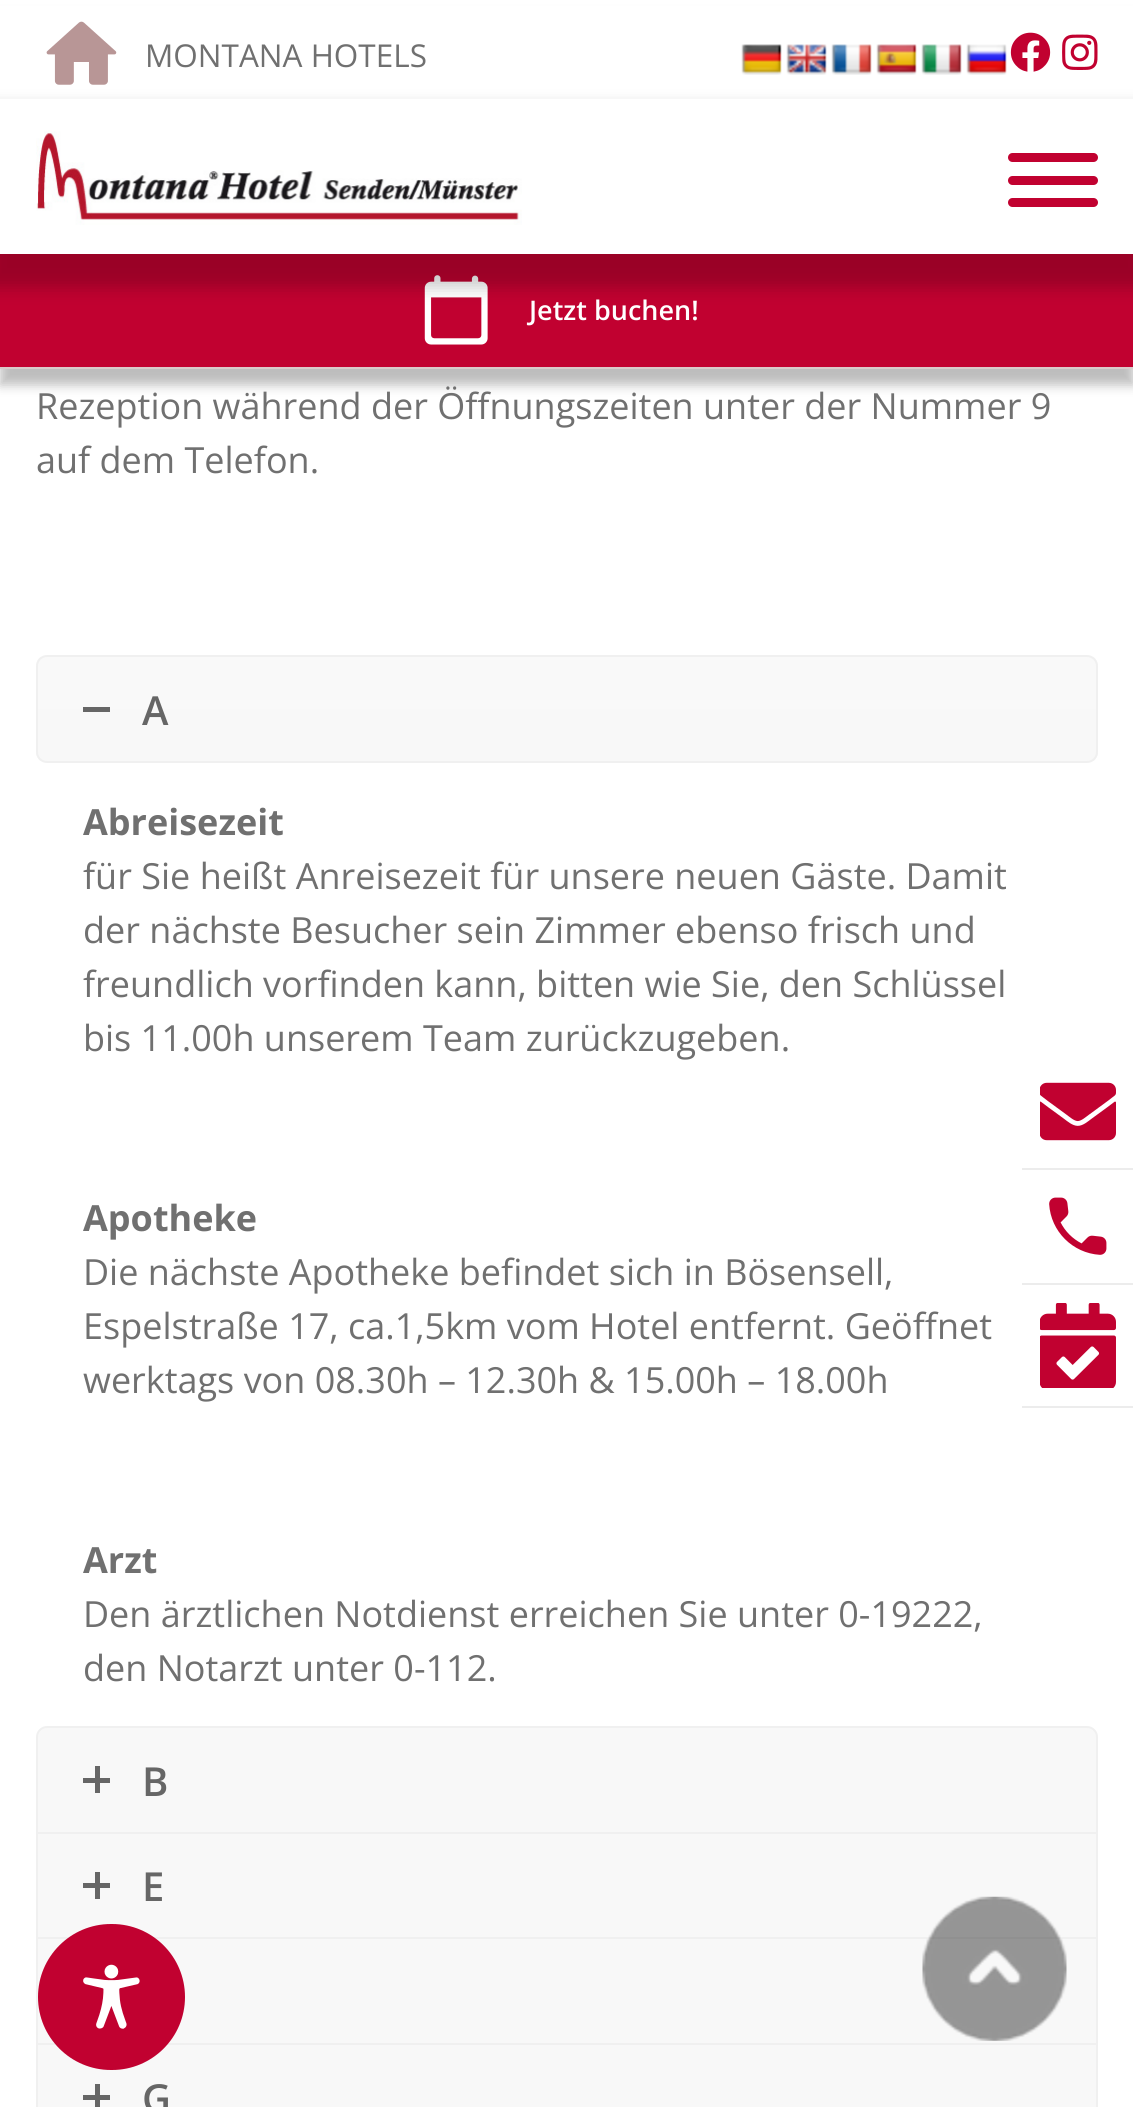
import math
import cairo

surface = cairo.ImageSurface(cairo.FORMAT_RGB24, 1133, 2107)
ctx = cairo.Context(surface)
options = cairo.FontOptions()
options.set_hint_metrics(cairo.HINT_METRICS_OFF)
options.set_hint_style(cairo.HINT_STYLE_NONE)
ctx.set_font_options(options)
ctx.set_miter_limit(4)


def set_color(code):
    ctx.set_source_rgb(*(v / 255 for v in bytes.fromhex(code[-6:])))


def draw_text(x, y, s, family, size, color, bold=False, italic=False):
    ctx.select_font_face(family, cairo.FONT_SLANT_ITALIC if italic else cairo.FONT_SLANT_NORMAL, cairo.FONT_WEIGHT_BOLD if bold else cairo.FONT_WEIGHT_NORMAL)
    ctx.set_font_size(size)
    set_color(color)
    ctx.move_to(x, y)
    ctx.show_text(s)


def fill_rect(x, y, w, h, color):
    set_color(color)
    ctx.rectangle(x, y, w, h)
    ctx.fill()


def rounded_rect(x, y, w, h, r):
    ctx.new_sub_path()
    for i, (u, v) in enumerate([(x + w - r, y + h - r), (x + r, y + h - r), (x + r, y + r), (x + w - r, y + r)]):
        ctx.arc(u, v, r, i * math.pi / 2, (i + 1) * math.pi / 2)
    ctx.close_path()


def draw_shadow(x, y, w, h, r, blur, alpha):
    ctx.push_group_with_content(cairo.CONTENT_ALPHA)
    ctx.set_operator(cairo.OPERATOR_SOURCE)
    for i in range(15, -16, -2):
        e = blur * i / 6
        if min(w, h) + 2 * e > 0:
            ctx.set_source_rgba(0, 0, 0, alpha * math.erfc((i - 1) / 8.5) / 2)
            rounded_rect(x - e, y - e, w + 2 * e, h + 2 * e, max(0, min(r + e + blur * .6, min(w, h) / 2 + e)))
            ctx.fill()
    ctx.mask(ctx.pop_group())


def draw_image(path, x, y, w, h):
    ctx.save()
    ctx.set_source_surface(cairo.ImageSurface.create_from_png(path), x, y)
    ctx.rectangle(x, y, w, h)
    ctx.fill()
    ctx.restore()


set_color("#ffffff")
ctx.paint()
set_color("#000000")
draw_shadow(0, 16, 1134, 369, 0, 5.5, 0.26)
fill_rect(0, 6, 1133, 248, "#ffffff")
fill_rect(0, 367, 1133, 2, "#dbcaca")
draw_image("assets/img1.png", 46, 21, 71, 64)
draw_text(145, 67, "MONTANA HOTELS", "Open Sans", 31.5, "#707070")
draw_image("assets/img2.png", 741, 44, 41, 31)
draw_image("assets/img3.png", 786, 44, 41, 31)
draw_image("assets/img4.png", 831, 44, 41, 31)
draw_image("assets/img5.png", 876, 44, 41, 31)
draw_image("assets/img6.png", 921, 44, 41, 31)
draw_image("assets/img7.png", 966, 44, 41, 31)
draw_image("assets/img8.png", 1010, 32, 41, 40)
draw_image("assets/img9.png", 1062, 34, 36, 36)
fill_rect(0, 254, 1133, 113, "#c10130")
draw_image("assets/img11.png", 424, 275, 64, 70)
ctx.save()
ctx.set_fill_rule(cairo.FILL_RULE_EVEN_ODD)
ctx.new_path()
ctx.move_to(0, 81)
ctx.line_to(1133, 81)
ctx.line_to(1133, 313)
ctx.line_to(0, 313)
ctx.close_path()
ctx.move_to(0, 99)
ctx.line_to(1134, 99)
ctx.line_to(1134, 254)
ctx.line_to(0, 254)
ctx.close_path()
ctx.clip()
set_color("#000000")
draw_shadow(-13, 106, 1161, 182, 0, 8, 0.2)
ctx.restore()
draw_image("assets/img10.png", 36, 130, 486, 95)
rounded_rect(1008, 176, 90, 9, 4.5)
ctx.fill()
rounded_rect(1008, 153, 90, 9, 4.5)
ctx.fill()
rounded_rect(1008, 198, 90, 9, 4.5)
ctx.fill()
draw_text(529, 320, "Jetzt buchen!", "Open Sans SemiBold", 27, "#ffffff")
fill_rect(1022, 1168, 111, 2, "#ececec")
draw_image("assets/img12.png", 1040, 1082, 76, 59)
fill_rect(1022, 1283, 111, 2, "#ececec")
draw_image("assets/img13.png", 1049, 1197, 58, 58)
fill_rect(1022, 1406, 111, 2, "#ececec")
draw_image("assets/img14.png", 1040, 1303, 76, 85)
draw_text(36, 419, "Rezeption während der Öffnungszeiten unter der Nummer 9", "Open Sans", 36, "#707070")
draw_text(36, 473, "auf dem Telefon.", "Open Sans", 36, "#707070")
ctx.save()
rounded_rect(36, 655, 1062, 108, 11)
ctx.clip()
gradient = cairo.LinearGradient(567, 657, 567, 761)
gradient.add_color_stop_rgba(0, 0.976, 0.976, 0.976, 1)
gradient.add_color_stop_rgba(1, 0.973, 0.973, 0.973, 1)
ctx.set_source(gradient)
ctx.rectangle(36, 657, 1062, 104)
ctx.fill()
ctx.restore()
rounded_rect(37, 656, 1060, 106, 10)
set_color("#f0f0f0")
ctx.stroke()
fill_rect(83, 707, 27, 5, "#666666")
draw_text(142, 725, "A", "Open Sans SemiBold", 40, "#666666")
draw_text(83, 835, "Abreisezeit", "Open Sans", 36, "#707070", bold=True)
draw_text(83, 889, "für Sie heißt Anreisezeit für unsere neuen Gäste. Damit", "Open Sans", 36, "#707070")
draw_text(83, 943, "der nächste Besucher sein Zimmer ebenso frisch und", "Open Sans", 36, "#707070")
draw_text(83, 997, "freundlich vorfinden kann, bitten wie Sie, den Schlüssel", "Open Sans", 36, "#707070")
draw_text(83, 1051, "bis 11.00h unserem Team zurückzugeben.", "Open Sans", 36, "#707070")
draw_text(83, 1231, "Apotheke", "Open Sans", 36, "#707070", bold=True)
draw_text(83, 1285, "Die nächste Apotheke befindet sich in Bösensell,", "Open Sans", 36, "#707070")
draw_text(83, 1339, "Espelstraße 17, ca.1,5km vom Hotel entfernt. Geöffnet", "Open Sans", 36, "#707070")
draw_text(83, 1393, "werktags von 08.30h – 12.30h & 15.00h – 18.00h", "Open Sans", 36, "#707070")
draw_text(83, 1573, "Arzt", "Open Sans", 36, "#707070", bold=True)
draw_text(83, 1627, "Den ärztlichen Notdienst erreichen Sie unter 0-19222,", "Open Sans", 36, "#707070")
draw_text(83, 1681, "den Notarzt unter 0-112.", "Open Sans", 36, "#707070")
set_color("#f8f8f8")
ctx.new_path()
ctx.move_to(47, 1727)
ctx.line_to(1087, 1727)
ctx.curve_to(1092.5, 1727, 1097, 1731.5, 1097, 1737)
ctx.line_to(1097, 1833)
ctx.line_to(37, 1833)
ctx.line_to(37, 1737)
ctx.curve_to(37, 1731.5, 41.5, 1727, 47, 1727)
ctx.close_path()
ctx.fill_preserve()
set_color("#f0f0f0")
ctx.stroke()
fill_rect(83, 1778, 27, 5, "#666666")
fill_rect(95, 1766, 5, 27, "#666666")
draw_text(142, 1796, "B", "Open Sans SemiBold", 40, "#666666")
fill_rect(38, 1834, 1058, 103, "#f8f8f8")
ctx.rectangle(37, 1833, 1060, 106)
set_color("#f0f0f0")
ctx.stroke()
fill_rect(83, 1883, 27, 5, "#666666")
fill_rect(95, 1872, 5, 27, "#666666")
draw_text(142, 1901, "E", "Open Sans SemiBold", 40, "#666666")
set_color("#f8f8f8")
ctx.rectangle(37, 1938, 1060, 106)
ctx.fill_preserve()
set_color("#f0f0f0")
ctx.stroke()
set_color("#f8f8f8")
ctx.rectangle(37, 2044, 1060, 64)
ctx.fill_preserve()
set_color("#f0f0f0")
ctx.stroke()
fill_rect(83, 2095, 27, 5, "#666666")
fill_rect(95, 2084, 5, 23, "#666666")
draw_text(142, 2113, "G", "Open Sans SemiBold", 40, "#666666")
set_color("#c10130")
rounded_rect(38, 1924, 147, 146, 73)
ctx.fill()
draw_image("assets/img15.png", 83, 1964, 57, 65)
draw_image("assets/img16.png", 922, 1896, 145, 145)
surface.write_to_png("output.png")
